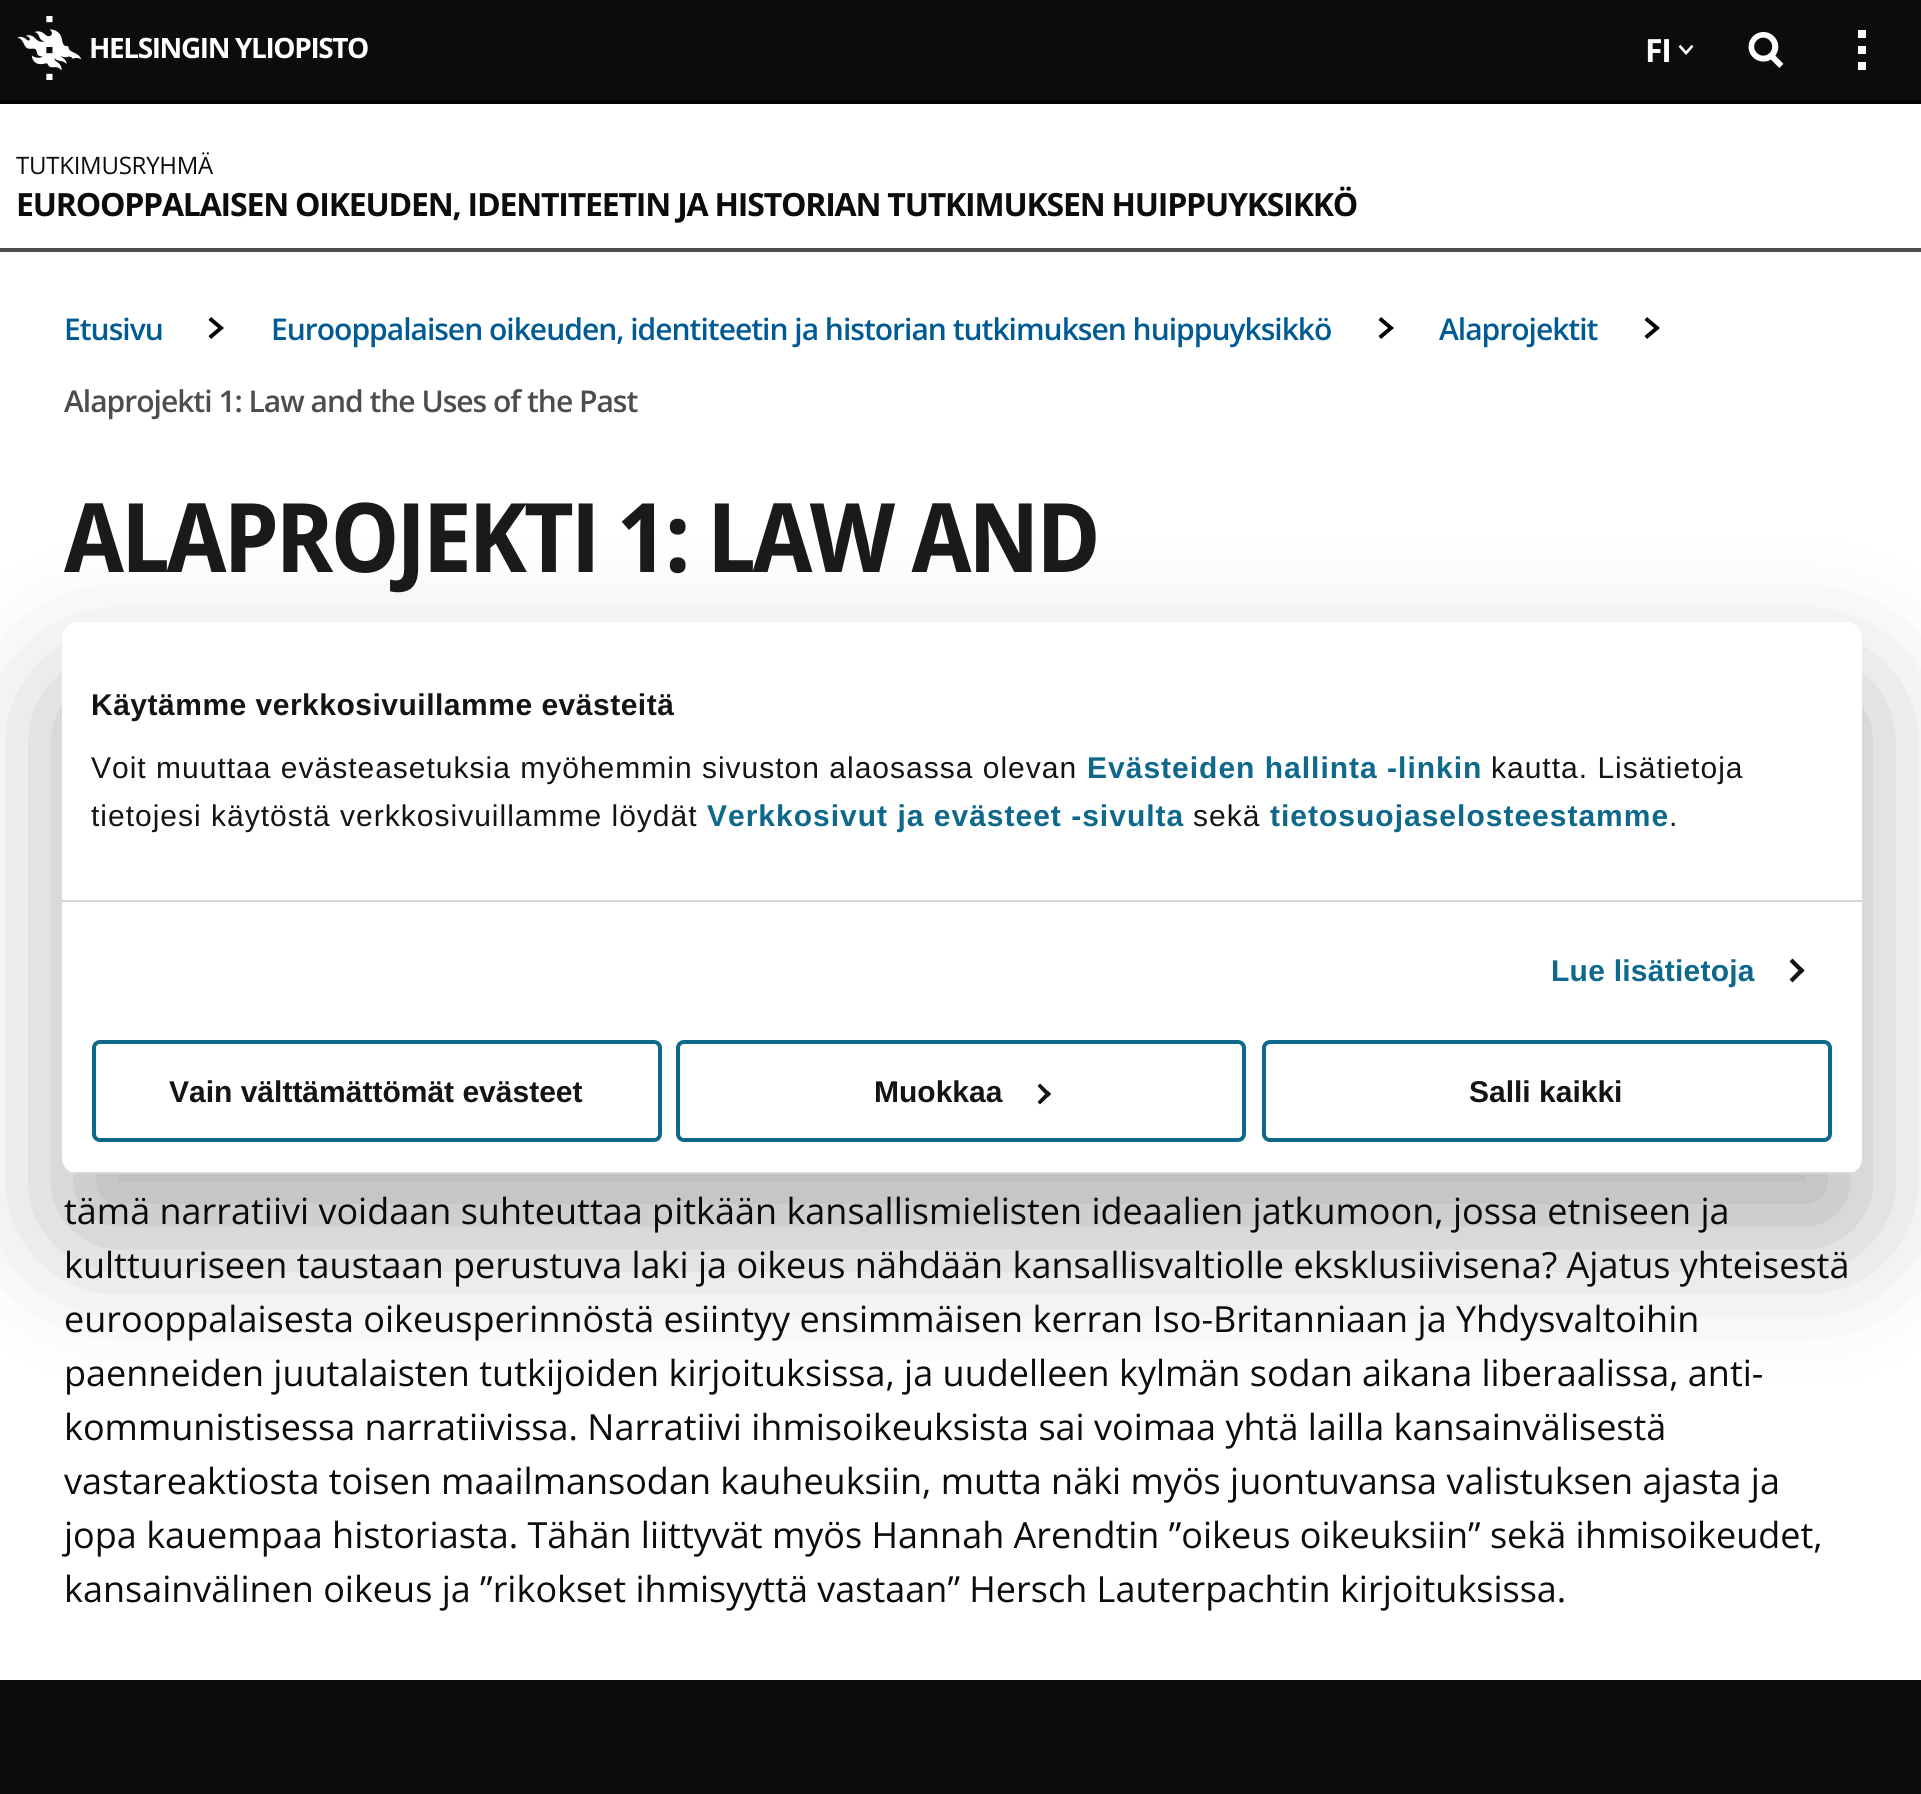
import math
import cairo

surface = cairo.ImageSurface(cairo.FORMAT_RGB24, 1921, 1794)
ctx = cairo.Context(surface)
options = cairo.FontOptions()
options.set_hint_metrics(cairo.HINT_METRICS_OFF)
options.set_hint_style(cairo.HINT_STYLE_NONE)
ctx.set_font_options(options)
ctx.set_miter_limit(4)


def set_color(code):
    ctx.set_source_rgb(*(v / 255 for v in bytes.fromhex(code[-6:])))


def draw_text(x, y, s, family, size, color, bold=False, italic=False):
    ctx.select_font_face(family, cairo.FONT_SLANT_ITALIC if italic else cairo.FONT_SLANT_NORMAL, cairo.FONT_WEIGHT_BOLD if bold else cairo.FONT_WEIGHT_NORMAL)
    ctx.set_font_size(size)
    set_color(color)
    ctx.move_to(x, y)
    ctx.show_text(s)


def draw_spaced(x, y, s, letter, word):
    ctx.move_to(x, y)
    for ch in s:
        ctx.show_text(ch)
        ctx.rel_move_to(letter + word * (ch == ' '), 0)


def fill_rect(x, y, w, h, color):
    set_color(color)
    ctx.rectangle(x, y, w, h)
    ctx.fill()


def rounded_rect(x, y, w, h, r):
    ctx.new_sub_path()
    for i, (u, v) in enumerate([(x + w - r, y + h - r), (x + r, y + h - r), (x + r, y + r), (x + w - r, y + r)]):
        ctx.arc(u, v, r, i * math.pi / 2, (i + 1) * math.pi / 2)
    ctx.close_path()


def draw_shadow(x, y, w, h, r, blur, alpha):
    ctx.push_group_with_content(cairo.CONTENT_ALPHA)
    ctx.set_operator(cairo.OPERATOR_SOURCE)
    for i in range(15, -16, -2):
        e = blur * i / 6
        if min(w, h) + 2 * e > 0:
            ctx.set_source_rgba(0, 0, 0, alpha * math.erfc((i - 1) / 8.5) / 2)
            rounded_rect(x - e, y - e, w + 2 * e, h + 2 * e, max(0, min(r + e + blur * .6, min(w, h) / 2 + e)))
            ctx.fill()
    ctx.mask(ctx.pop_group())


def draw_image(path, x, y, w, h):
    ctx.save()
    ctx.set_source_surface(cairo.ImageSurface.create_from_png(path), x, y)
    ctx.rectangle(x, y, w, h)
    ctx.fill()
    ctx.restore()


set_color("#ffffff")
ctx.paint()
fill_rect(0, 248, 1921, 4, "#4d4d4d")
fill_rect(0, 0, 1921, 100, "#0c0c0c")
fill_rect(0, 100, 1921, 4, "#040404")
draw_image("assets/img1.png", 17, 16, 65, 64)
ctx.select_font_face("Open Sans", cairo.FONT_SLANT_NORMAL, cairo.FONT_WEIGHT_BOLD)
ctx.set_font_size(28)
set_color("#ffffff")
draw_spaced(89, 58, "HELSINGIN YLIOPISTO", -1.4, 0)
ctx.set_font_size(32)
draw_spaced(1645, 62, "FI", -1.4, 0)
draw_image("assets/img2.png", 1678, 44, 16, 11)
draw_image("assets/img3.png", 1748, 32, 36, 36)
ctx.new_path()
ctx.move_to(1866, 54)
ctx.line_to(1866, 46)
ctx.line_to(1858, 46)
ctx.line_to(1858, 54)
ctx.close_path()
ctx.move_to(1858, 70)
ctx.line_to(1866, 70)
ctx.line_to(1866, 62)
ctx.line_to(1858, 62)
ctx.close_path()
ctx.move_to(1866, 38)
ctx.line_to(1866, 30)
ctx.line_to(1858, 30)
ctx.line_to(1858, 38)
ctx.close_path()
ctx.fill()
ctx.select_font_face("Open Sans")
ctx.set_font_size(24)
set_color("#0c0c0c")
draw_spaced(16, 174, "TUTKIMUSRYHMÄ", -0.25, 0)
ctx.select_font_face("Open Sans", cairo.FONT_SLANT_NORMAL, cairo.FONT_WEIGHT_BOLD)
ctx.set_font_size(32)
draw_spaced(16, 216, "EUROOPPALAISEN OIKEUDEN, IDENTITEETIN JA HISTORIAN TUTKIMUKSEN HUIPPUYKSIKKÖ", -1.2, 0)
ctx.select_font_face("Open Sans SemiBold")
ctx.set_font_size(30)
set_color("#005a94")
draw_spaced(64, 340, "Etusivu", -1, 0)
set_color("#000000")
ctx.new_path()
ctx.move_to(211, 317)
ctx.line_to(208.5, 320)
ctx.line_to(218, 328)
ctx.line_to(208.5, 336)
ctx.line_to(211, 339)
ctx.line_to(224, 328)
ctx.close_path()
ctx.fill()
set_color("#005a94")
draw_spaced(271, 340, "Eurooppalaisen oikeuden, identiteetin ja historian tutkimuksen huippuyksikkö", -1, 0)
set_color("#000000")
ctx.new_path()
ctx.move_to(1381, 317)
ctx.line_to(1378.5, 320)
ctx.line_to(1388, 328)
ctx.line_to(1378.5, 336)
ctx.line_to(1381, 339)
ctx.line_to(1394, 328)
ctx.close_path()
ctx.fill()
set_color("#005a94")
draw_spaced(1439, 340, "Alaprojektit", -1, 0)
set_color("#000000")
ctx.new_path()
ctx.move_to(1647, 317)
ctx.line_to(1644.5, 320)
ctx.line_to(1654, 328)
ctx.line_to(1644.5, 336)
ctx.line_to(1647, 339)
ctx.line_to(1660, 328)
ctx.close_path()
ctx.fill()
set_color("#4d4d4d")
draw_spaced(64, 412, "Alaprojekti 1: Law and the Uses of the Past", -1, 0)
ctx.select_font_face("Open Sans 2", cairo.FONT_SLANT_NORMAL, cairo.FONT_WEIGHT_BOLD)
ctx.set_font_size(96)
set_color("#1a1a1a")
draw_spaced(64, 572, "ALAPROJEKTI 1: LAW AND", -2.8, 0)
draw_text(64, 1224, "tämä narratiivi voidaan suhteuttaa pitkään kansallismielisten ideaalien jatkumoon, jossa etniseen ja", "Open Sans", 36, "#0c0c0c")
draw_text(64, 1278, "kulttuuriseen taustaan perustuva laki ja oikeus nähdään kansallisvaltiolle eksklusiivisena? Ajatus yhteisestä", "Open Sans", 36, "#0c0c0c")
draw_text(64, 1332, "eurooppalaisesta oikeusperinnöstä esiintyy ensimmäisen kerran Iso-Britanniaan ja Yhdysvaltoihin", "Open Sans", 36, "#0c0c0c")
draw_text(64, 1386, "paenneiden juutalaisten tutkijoiden kirjoituksissa, ja uudelleen kylmän sodan aikana liberaalissa, anti-", "Open Sans", 36, "#0c0c0c")
draw_text(64, 1440, "kommunistisessa narratiivissa. Narratiivi ihmisoikeuksista sai voimaa yhtä lailla kansainvälisestä", "Open Sans", 36, "#0c0c0c")
draw_text(64, 1494, "vastareaktiosta toisen maailmansodan kauheuksiin, mutta näki myös juontuvansa valistuksen ajasta ja", "Open Sans", 36, "#0c0c0c")
draw_text(64, 1548, "jopa kauempaa historiasta. Tähän liittyvät myös Hannah Arendtin ”oikeus oikeuksiin” sekä ihmisoikeudet,", "Open Sans", 36, "#0c0c0c")
draw_text(64, 1602, "kansainvälinen oikeus ja ”rikokset ihmisyyttä vastaan” Hersch Lauterpachtin kirjoituksissa.", "Open Sans", 36, "#0c0c0c")
fill_rect(0, 1680, 1921, 114, "#0c0c0c")
set_color("#000000")
draw_shadow(62, 686, 1800, 552, 16, 68, 0.3)
set_color("#ffffff")
rounded_rect(62, 622, 1800, 552, 16)
ctx.fill()
fill_rect(62, 900, 1800, 2, "#d6d6d6")
ctx.select_font_face("Liberation Sans", cairo.FONT_SLANT_NORMAL, cairo.FONT_WEIGHT_BOLD)
ctx.set_font_size(30)
set_color("#141414")
draw_spaced(91, 715, "Käytämme verkkosivuillamme evästeitä", 0.5, 0)
ctx.select_font_face("Liberation Sans")
draw_spaced(91, 778, "Voit muuttaa evästeasetuksia myöhemmin sivuston alaosassa olevan", 1, 0)
ctx.select_font_face("Liberation Sans", cairo.FONT_SLANT_NORMAL, cairo.FONT_WEIGHT_BOLD)
set_color("#0e688b")
draw_spaced(1087, 778, "Evästeiden hallinta -linkin", 1, 0)
ctx.select_font_face("Liberation Sans")
set_color("#141414")
draw_spaced(1491, 778, "kautta. Lisätietoja", 1, 0)
draw_spaced(91, 826, "tietojesi käytöstä verkkosivuillamme löydät", 1, 0)
ctx.select_font_face("Liberation Sans", cairo.FONT_SLANT_NORMAL, cairo.FONT_WEIGHT_BOLD)
set_color("#0e688b")
draw_spaced(707, 826, "Verkkosivut ja evästeet -sivulta", 1, 0)
ctx.select_font_face("Liberation Sans")
set_color("#141414")
draw_spaced(1193, 826, "sekä", 1, 0)
ctx.select_font_face("Liberation Sans", cairo.FONT_SLANT_NORMAL, cairo.FONT_WEIGHT_BOLD)
set_color("#0e688b")
draw_spaced(1270, 826, "tietosuojaselosteestamme", 1, 0)
ctx.select_font_face("Liberation Sans")
set_color("#141414")
draw_spaced(1669, 826, ".", 1, 0)
ctx.select_font_face("Liberation Sans", cairo.FONT_SLANT_NORMAL, cairo.FONT_WEIGHT_BOLD)
set_color("#0e688b")
draw_spaced(1551, 981, "Lue lisätietoja", 0.25, 0)
set_color("#141414")
ctx.new_path()
ctx.move_to(1792.5, 958.5)
ctx.line_to(1804.5, 970.5)
ctx.line_to(1801.5, 973.5)
ctx.line_to(1789.5, 961.5)
ctx.close_path()
ctx.fill()
ctx.new_path()
ctx.move_to(1801.5, 967.5)
ctx.line_to(1804.5, 970.5)
ctx.line_to(1792.5, 982.5)
ctx.line_to(1789.5, 979.5)
ctx.close_path()
ctx.fill()
ctx.save()
rounded_rect(62, 622, 1800, 552, 16)
ctx.clip()
fill_rect(62, 1172, 1800, 2, "#d6d6d6")
ctx.restore()
rounded_rect(94, 1042, 566, 98, 6)
set_color("#0e688b")
ctx.set_line_width(4)
ctx.stroke()
draw_text(169, 1102, "Vain välttämättömät evästeet", "Liberation Sans", 30, "#141414", bold=True)
rounded_rect(678, 1042, 566, 98, 6)
set_color("#0e688b")
ctx.stroke()
draw_text(874, 1102, "Muokkaa", "Liberation Sans", 30, "#141414", bold=True)
ctx.new_path()
ctx.move_to(1040, 1083.5)
ctx.line_to(1051, 1094)
ctx.line_to(1048, 1097)
ctx.line_to(1037.5, 1086)
ctx.close_path()
ctx.fill()
ctx.new_path()
ctx.move_to(1048, 1091)
ctx.line_to(1051, 1094)
ctx.line_to(1040, 1104.5)
ctx.line_to(1037.5, 1102)
ctx.close_path()
ctx.fill()
rounded_rect(1264, 1042, 566, 98, 6)
set_color("#0e688b")
ctx.stroke()
draw_text(1469, 1102, "Salli kaikki", "Liberation Sans", 30, "#141414", bold=True)
surface.write_to_png("output.png")
